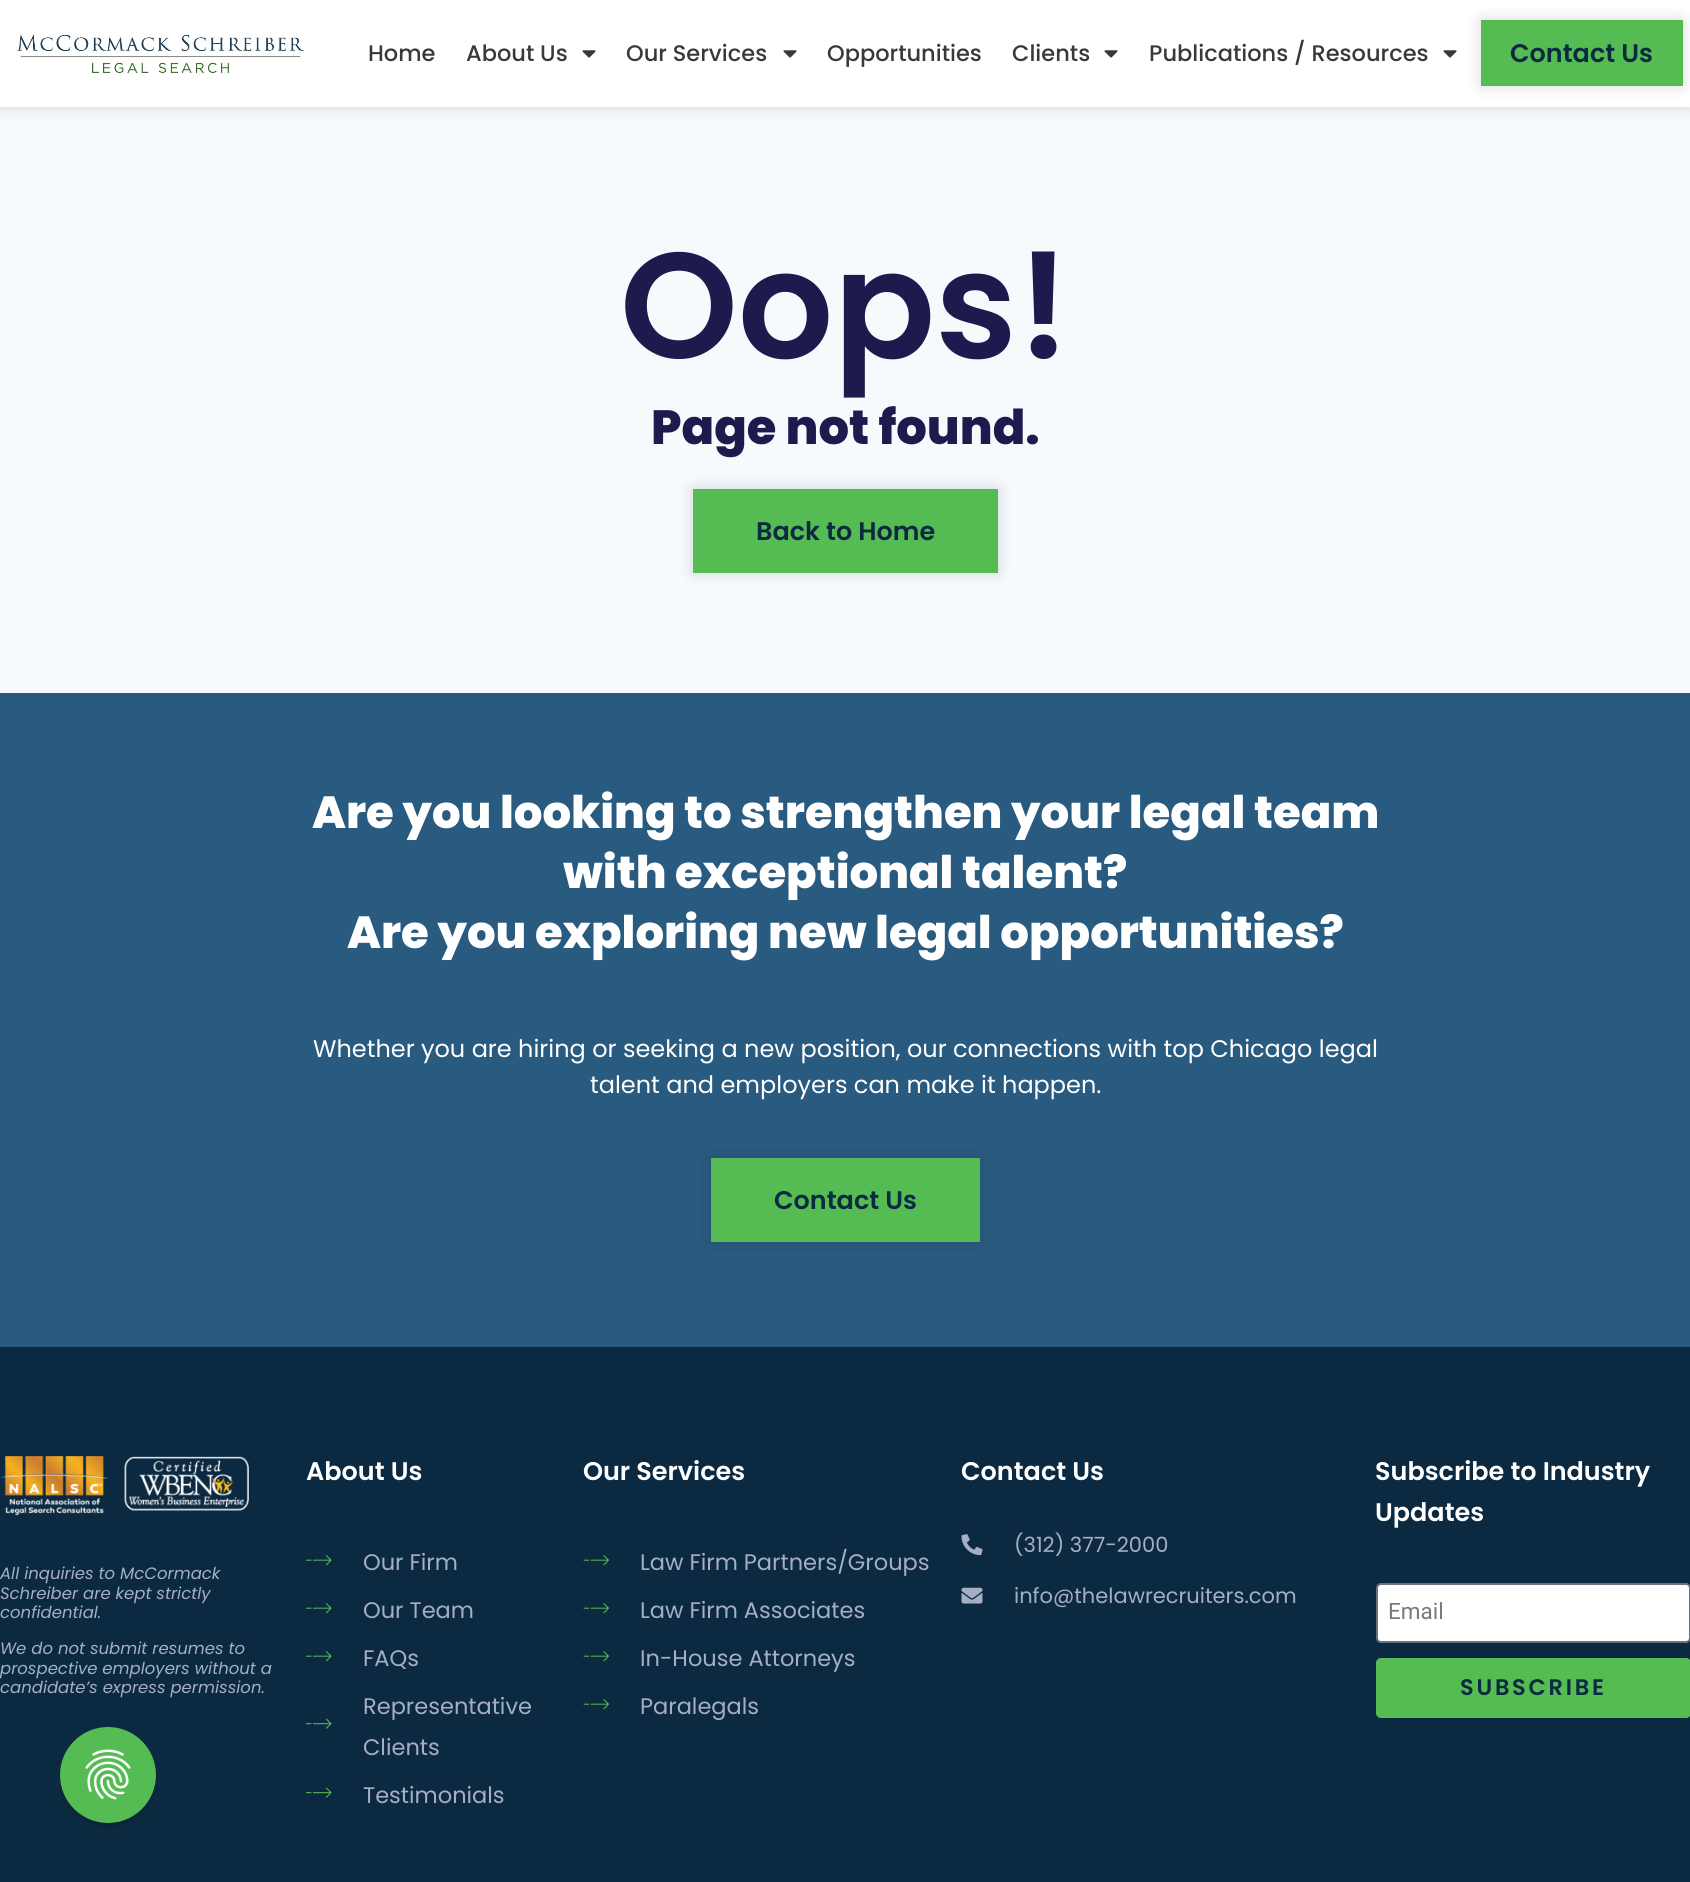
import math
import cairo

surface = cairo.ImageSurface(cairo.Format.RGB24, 1690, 1882)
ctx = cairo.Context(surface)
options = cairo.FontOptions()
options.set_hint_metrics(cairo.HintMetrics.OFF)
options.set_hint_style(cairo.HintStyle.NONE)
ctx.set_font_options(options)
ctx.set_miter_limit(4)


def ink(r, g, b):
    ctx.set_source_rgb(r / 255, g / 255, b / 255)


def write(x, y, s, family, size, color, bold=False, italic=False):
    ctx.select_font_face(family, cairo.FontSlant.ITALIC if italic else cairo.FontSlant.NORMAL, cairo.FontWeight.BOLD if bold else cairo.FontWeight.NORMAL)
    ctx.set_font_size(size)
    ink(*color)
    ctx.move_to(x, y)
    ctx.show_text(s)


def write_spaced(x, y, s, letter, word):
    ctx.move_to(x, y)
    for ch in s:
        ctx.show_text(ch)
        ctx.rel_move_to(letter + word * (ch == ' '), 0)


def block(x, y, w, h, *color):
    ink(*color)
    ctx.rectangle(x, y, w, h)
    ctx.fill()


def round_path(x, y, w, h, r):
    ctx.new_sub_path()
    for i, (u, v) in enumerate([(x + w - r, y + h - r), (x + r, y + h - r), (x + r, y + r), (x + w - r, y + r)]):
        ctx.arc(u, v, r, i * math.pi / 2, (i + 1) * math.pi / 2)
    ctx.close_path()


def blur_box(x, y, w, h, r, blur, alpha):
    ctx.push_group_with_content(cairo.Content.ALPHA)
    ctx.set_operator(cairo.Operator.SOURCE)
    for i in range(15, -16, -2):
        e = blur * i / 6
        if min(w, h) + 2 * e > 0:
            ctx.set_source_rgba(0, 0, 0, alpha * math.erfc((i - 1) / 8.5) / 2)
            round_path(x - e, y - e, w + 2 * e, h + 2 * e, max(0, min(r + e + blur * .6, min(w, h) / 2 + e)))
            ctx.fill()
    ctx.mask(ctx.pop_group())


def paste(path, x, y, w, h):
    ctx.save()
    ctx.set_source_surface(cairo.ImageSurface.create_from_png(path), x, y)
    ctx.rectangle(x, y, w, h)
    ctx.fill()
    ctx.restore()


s1 = dict(family="Poppins Medium", size=22.5, color=(57, 57, 57))
s2 = dict(family="Poppins SemiBold", size=25.5, color=(11, 42, 65))
s3 = dict(family="Poppins SemiBold", size=150, color=(29, 26, 78))
s4 = dict(family="Poppins ExtraBold", size=48, color=(29, 26, 78))
s5 = dict(family="Poppins ExtraBold", size=45, color=(255, 255, 255))
s6 = dict(family="Poppins", size=24, color=(255, 255, 255))
s7 = dict(family="Poppins SemiBold", size=25.5, color=(255, 255, 255))
s8 = dict(family="Poppins", size=22.5, color=(165, 174, 194))
s9 = dict(family="Poppins", size=21, color=(165, 174, 194))
s10 = dict(family="Roboto", size=22.5, color=(121, 122, 124))
s11 = dict(family="Poppins", size=16.5, color=(165, 174, 194), italic=True)

ink(247, 250, 252)
ctx.paint()
ink(0, 0, 0)
blur_box(0, 0, 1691, 107, 0, 7.5, 0.15)
block(0, 0, 1690, 107, 255, 255, 255)
paste("pic1.png", 17, 33, 287, 41)
write(368, 61, "Home", **s1)
write(466, 61, "About Us", **s1)
paste("pic2.png", 582, 50, 14, 8)
write(626, 61, "Our Services", **s1)
paste("pic2.png", 783, 50, 14, 8)
write(827, 61, "Opportunities", **s1)
write(1012, 61, "Clients", **s1)
paste("pic2.png", 1104, 50, 14, 8)
write(1149, 61, "Publications / Resources", **s1)
paste("pic2.png", 1443, 50, 14, 8)
ink(0, 0, 0)
blur_box(1481, 20, 202, 66, 0, 7.5, 0.15)
block(1481, 20, 202, 66, 85, 187, 83)
write(1510, 62, "Contact Us", **s2)
write(620, 358, "Oops!", **s3)
write(651, 444, "Page not found.", **s4)
ink(0, 0, 0)
blur_box(693, 489, 305, 84, 0, 7.5, 0.15)
block(693, 489, 305, 84, 85, 187, 83)
write(756, 540, "Back to Home", **s2)
block(0, 693, 1690, 654, 41, 91, 128)
write(312, 828, "Are you looking to strengthen your legal team", **s5)
write(563, 888, "with exceptional talent?", **s5)
write(347, 948, "Are you exploring new legal opportunities?", **s5)
write(313, 1057, "Whether you are hiring or seeking a new position, our connections with top Chicago legal", **s6)
write(590, 1093, "talent and employers can make it happen.", **s6)
ink(0, 0, 0)
blur_box(711, 1158, 269, 84, 0, 7.5, 0.15)
block(711, 1158, 269, 84, 85, 187, 83)
write(774, 1209, "Contact Us", **s2)
block(0, 1347, 1690, 535, 11, 42, 65)
write(306, 1480, "About Us", **s7)
paste("pic3.png", 306, 1555, 26, 11)
write(363, 1570, "Our Firm", **s8)
paste("pic3.png", 306, 1603, 26, 11)
write(363, 1618, "Our Team", **s8)
paste("pic3.png", 306, 1651, 26, 11)
write(363, 1666, "FAQs", **s8)
paste("pic4.png", 306, 1718, 26, 11)
write(363, 1714, "Representative", **s8)
write(363, 1755, "Clients", **s8)
paste("pic4.png", 306, 1787, 26, 11)
write(363, 1803, "Testimonials", **s8)
write(583, 1480, "Our Services", **s7)
paste("pic5.png", 583, 1555, 26, 11)
write(640, 1570, "Law Firm Partners/Groups", **s8)
paste("pic5.png", 583, 1603, 26, 11)
write(640, 1618, "Law Firm Associates", **s8)
paste("pic5.png", 583, 1651, 26, 11)
write(640, 1666, "In-House Attorneys", **s8)
paste("pic5.png", 583, 1699, 26, 11)
write(640, 1714, "Paralegals", **s8)
write(961, 1480, "Contact Us", **s7)
paste("pic6.png", 961, 1534, 22, 22)
write(1014, 1552, "(312) 377-2000", **s9)
paste("pic7.png", 961, 1587, 22, 17)
write(1014, 1603, "info@thelawrecruiters.com", **s9)
write(1375, 1480, "Subscribe to Industry", **s7)
write(1375, 1521, "Updates", **s7)
round_path(1377, 1584, 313, 58, 4)
ctx.fill_preserve()
ink(105, 114, 125)
ctx.stroke()
write(1388, 1619, "Email", **s10)
ink(85, 187, 83)
round_path(1376, 1658, 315, 60, 5)
ctx.fill()
ctx.select_font_face("Poppins SemiBold")
ink(11, 42, 65)
write_spaced(1460, 1695, "SUBSCRIBE", 2.75, 0)
paste("pic8.png", 0, 1455, 249, 61)
write(0, 1579, "All inquiries to McCormack", **s11)
write(0, 1599, "Schreiber are kept strictly", **s11)
write(0, 1618, "confidential.", **s11)
write(0, 1654, "We do not submit resumes to", **s11)
write(0, 1674, "prospective employers without a", **s11)
write(0, 1693, "candidate’s express permission.", **s11)
ink(0, 0, 0)
blur_box(62, 1733, 93, 93, 46.5, 4, 0.2)
ink(85, 187, 83)
ctx.arc(108, 1775, 48, 0, 2 * math.pi)
ctx.fill()
paste("pic9.png", 85, 1749, 46, 51)
surface.write_to_png("screenshot.png")
